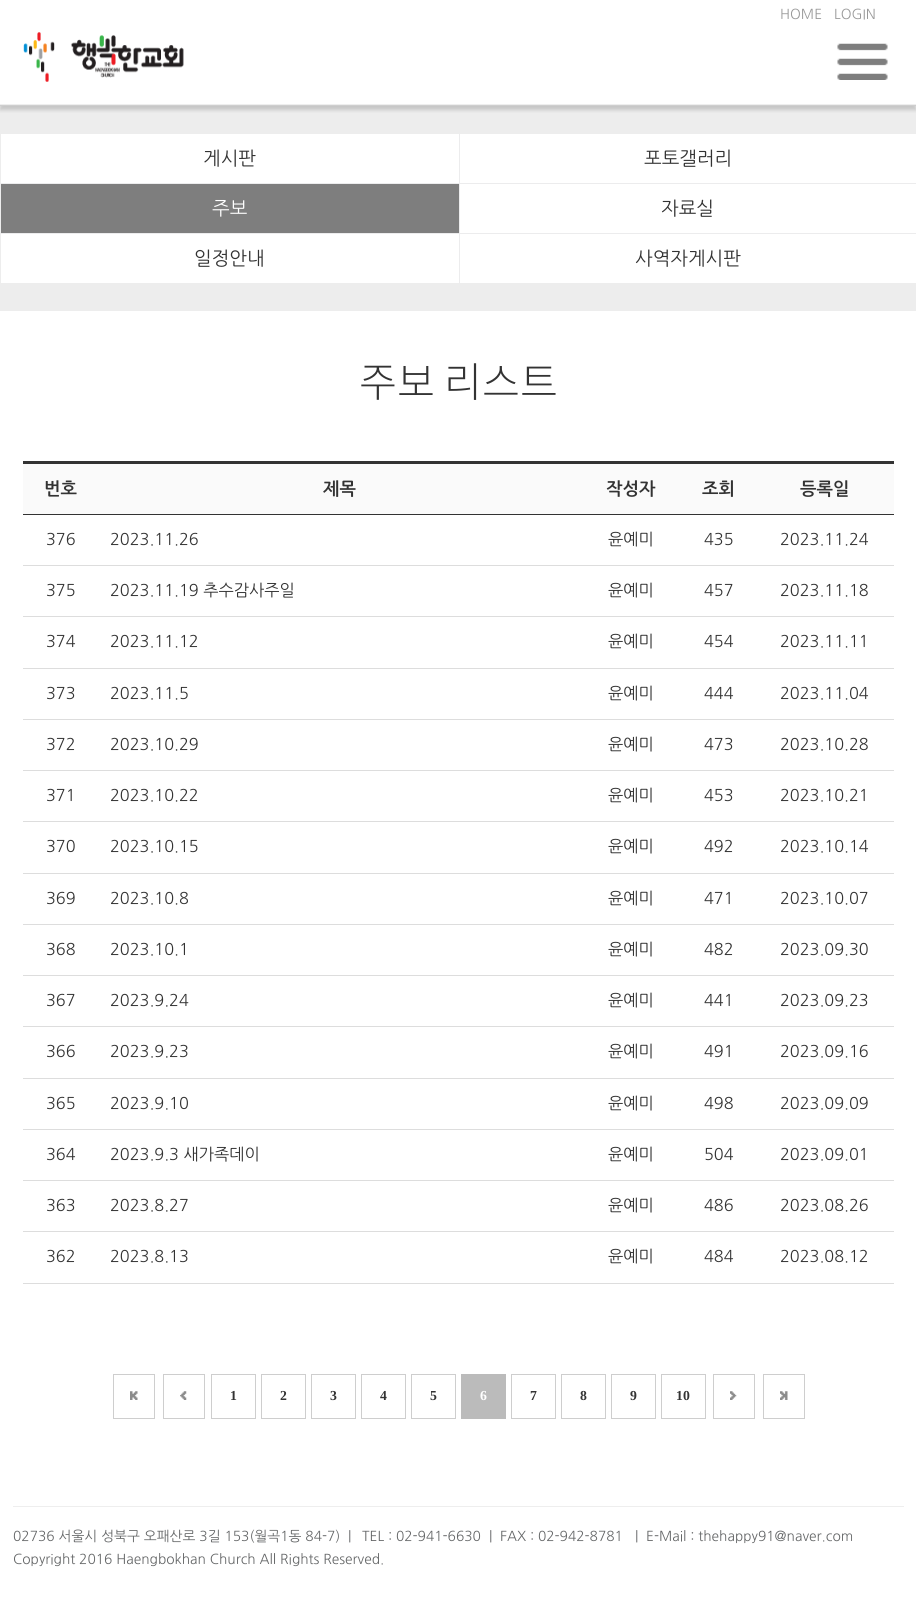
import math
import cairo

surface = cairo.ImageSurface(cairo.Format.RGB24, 916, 1613)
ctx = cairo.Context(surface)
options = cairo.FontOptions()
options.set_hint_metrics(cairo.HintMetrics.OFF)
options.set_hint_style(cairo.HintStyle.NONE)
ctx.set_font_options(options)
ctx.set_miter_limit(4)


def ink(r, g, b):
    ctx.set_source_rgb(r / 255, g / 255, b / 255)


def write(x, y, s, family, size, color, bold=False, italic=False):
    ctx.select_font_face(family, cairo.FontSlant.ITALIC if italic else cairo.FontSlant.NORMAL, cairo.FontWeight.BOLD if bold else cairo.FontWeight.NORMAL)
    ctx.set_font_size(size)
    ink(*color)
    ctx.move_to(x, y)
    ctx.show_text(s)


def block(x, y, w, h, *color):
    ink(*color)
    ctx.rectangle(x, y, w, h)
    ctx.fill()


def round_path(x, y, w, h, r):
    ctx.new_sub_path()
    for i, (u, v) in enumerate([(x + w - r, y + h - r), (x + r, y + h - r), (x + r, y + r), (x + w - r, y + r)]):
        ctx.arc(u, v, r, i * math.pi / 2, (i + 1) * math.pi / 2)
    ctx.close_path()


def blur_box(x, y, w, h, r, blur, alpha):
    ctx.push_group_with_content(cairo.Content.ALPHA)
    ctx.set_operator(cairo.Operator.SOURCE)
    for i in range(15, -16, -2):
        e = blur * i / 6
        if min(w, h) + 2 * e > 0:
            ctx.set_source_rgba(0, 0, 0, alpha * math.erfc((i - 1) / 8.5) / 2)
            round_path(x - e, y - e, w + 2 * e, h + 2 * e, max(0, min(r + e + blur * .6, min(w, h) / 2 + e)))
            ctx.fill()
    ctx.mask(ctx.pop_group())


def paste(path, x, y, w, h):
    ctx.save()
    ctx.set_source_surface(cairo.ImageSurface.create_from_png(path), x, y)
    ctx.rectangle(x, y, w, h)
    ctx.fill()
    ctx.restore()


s1 = dict(family="NanumGothic", size=13.75, color=(153, 153, 153))
s2 = dict(family="NanumGothic", size=18.75, color=(51, 51, 51))
s3 = dict(family="NanumGothic", size=18.75, color=(255, 255, 255))
s4 = dict(family="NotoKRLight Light", size=41.25, color=(51, 51, 51))
s5 = dict(family="NanumGothic", size=17.5, color=(51, 51, 51), bold=True)
s6 = dict(family="NanumGothic", size=16.25, color=(51, 51, 51))
s7 = dict(family="Liberation Serif", size=13.75, color=(51, 51, 51), bold=True)
s8 = dict(family="Liberation Serif", size=13.75, color=(255, 255, 255), bold=True)
s9 = dict(family="NanumGothic", size=13.75, color=(101, 103, 104))

ink(255, 255, 255)
ctx.paint()
block(0, 106, 916, 205, 237, 237, 237)
ctx.save()
ctx.rectangle(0, 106, 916, 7)
ctx.clip()
ink(158, 158, 158)
blur_box(0, 4, 916, 106, 0, 2, 0.5)
ctx.restore()
block(0, 105, 916, 1, 206, 206, 206)
block(0, 104, 916, 1, 238, 238, 238)
write(780, 19, "HOME", **s1)
write(834, 19, "LOGIN", **s1)
paste("pic1.png", 23, 32, 161, 50)
paste("pic2.png", 837, 43, 51, 37)
block(1, 134, 915, 149, 255, 255, 255)
block(0, 183, 916, 1, 236, 236, 237)
write(203, 165, "게시판", **s2)
block(459, 134, 1, 50, 236, 236, 237)
write(644, 165, "포토갤러리", **s2)
block(1, 184, 458, 49, 126, 126, 126)
block(0, 233, 916, 1, 236, 236, 237)
write(212, 215, "주보", **s3)
block(459, 184, 1, 100, 236, 236, 237)
write(661, 215, "자료실", **s2)
write(194, 265, "일정안내", **s2)
write(635, 265, "사역자게시판", **s2)
write(359, 397, "주보 리스트", **s4)
block(23, 461, 871, 3, 51, 51, 51)
block(23, 464, 871, 50, 250, 250, 250)
write(44, 495, "번호", **s5)
write(323, 495, "제목", **s5)
write(606, 495, "작성자", **s5)
write(702, 495, "조회", **s5)
block(23, 514, 871, 1, 51, 51, 51)
write(800, 495, "등록일", **s5)
write(46, 545, "376", **s6)
write(110, 545, "2023.11.26", **s6)
write(608, 545, "윤예미", **s6)
write(704, 545, "435", **s6)
block(23, 565, 871, 1, 221, 221, 221)
write(780, 545, "2023.11.24", **s6)
write(46, 596, "375", **s6)
write(110, 596, "2023.11.19 추수감사주일", **s6)
write(608, 596, "윤예미", **s6)
write(704, 596, "457", **s6)
block(23, 616, 871, 1, 221, 221, 221)
write(780, 596, "2023.11.18", **s6)
write(46, 647, "374", **s6)
write(110, 647, "2023.11.12", **s6)
write(608, 647, "윤예미", **s6)
write(704, 647, "454", **s6)
block(23, 668, 871, 1, 221, 221, 221)
write(780, 647, "2023.11.11", **s6)
write(46, 699, "373", **s6)
write(110, 699, "2023.11.5", **s6)
write(608, 699, "윤예미", **s6)
write(704, 699, "444", **s6)
block(23, 719, 871, 1, 221, 221, 221)
write(780, 699, "2023.11.04", **s6)
write(46, 750, "372", **s6)
write(110, 750, "2023.10.29", **s6)
write(608, 750, "윤예미", **s6)
write(704, 750, "473", **s6)
block(23, 770, 871, 1, 221, 221, 221)
write(780, 750, "2023.10.28", **s6)
write(46, 801, "371", **s6)
write(110, 801, "2023.10.22", **s6)
write(608, 801, "윤예미", **s6)
write(704, 801, "453", **s6)
block(23, 821, 871, 1, 221, 221, 221)
write(780, 801, "2023.10.21", **s6)
write(46, 852, "370", **s6)
write(110, 852, "2023.10.15", **s6)
write(608, 852, "윤예미", **s6)
write(704, 852, "492", **s6)
block(23, 873, 871, 1, 221, 221, 221)
write(780, 852, "2023.10.14", **s6)
write(46, 904, "369", **s6)
write(110, 904, "2023.10.8", **s6)
write(608, 904, "윤예미", **s6)
write(704, 904, "471", **s6)
block(23, 924, 871, 1, 221, 221, 221)
write(780, 904, "2023.10.07", **s6)
write(46, 955, "368", **s6)
write(110, 955, "2023.10.1", **s6)
write(608, 955, "윤예미", **s6)
write(704, 955, "482", **s6)
block(23, 975, 871, 1, 221, 221, 221)
write(780, 955, "2023.09.30", **s6)
write(46, 1006, "367", **s6)
write(110, 1006, "2023.9.24", **s6)
write(608, 1006, "윤예미", **s6)
write(704, 1006, "441", **s6)
block(23, 1026, 871, 1, 221, 221, 221)
write(780, 1006, "2023.09.23", **s6)
write(46, 1057, "366", **s6)
write(110, 1057, "2023.9.23", **s6)
write(608, 1057, "윤예미", **s6)
write(704, 1057, "491", **s6)
block(23, 1078, 871, 1, 221, 221, 221)
write(780, 1057, "2023.09.16", **s6)
write(46, 1109, "365", **s6)
write(110, 1109, "2023.9.10", **s6)
write(608, 1109, "윤예미", **s6)
write(704, 1109, "498", **s6)
block(23, 1129, 871, 1, 221, 221, 221)
write(780, 1109, "2023.09.09", **s6)
write(46, 1160, "364", **s6)
write(110, 1160, "2023.9.3 새가족데이", **s6)
write(608, 1160, "윤예미", **s6)
write(704, 1160, "504", **s6)
block(23, 1180, 871, 1, 221, 221, 221)
write(780, 1160, "2023.09.01", **s6)
write(46, 1211, "363", **s6)
write(110, 1211, "2023.8.27", **s6)
write(608, 1211, "윤예미", **s6)
write(704, 1211, "486", **s6)
block(23, 1231, 871, 1, 221, 221, 221)
write(780, 1211, "2023.08.26", **s6)
write(46, 1262, "362", **s6)
write(110, 1262, "2023.8.13", **s6)
write(608, 1262, "윤예미", **s6)
write(704, 1262, "484", **s6)
block(23, 1283, 871, 1, 221, 221, 221)
write(780, 1262, "2023.08.12", **s6)
paste("pic3.png", 130, 1391, 8, 9)
ctx.rectangle(113.5, 1374.5, 41, 44)
ink(206, 206, 206)
ctx.set_line_width(1)
ctx.stroke()
paste("pic4.png", 180, 1391, 7, 9)
ctx.rectangle(163.5, 1374.5, 41, 44)
ctx.stroke()
ctx.rectangle(211.5, 1374.5, 44, 44)
ctx.stroke()
write(230, 1400, "1", **s7)
ctx.rectangle(261.5, 1374.5, 44, 44)
ink(206, 206, 206)
ctx.stroke()
write(280, 1400, "2", **s7)
ctx.rectangle(311.5, 1374.5, 44, 44)
ink(206, 206, 206)
ctx.stroke()
write(330, 1400, "3", **s7)
ctx.rectangle(361.5, 1374.5, 44, 44)
ink(206, 206, 206)
ctx.stroke()
write(380, 1400, "4", **s7)
ctx.rectangle(411.5, 1374.5, 44, 44)
ink(206, 206, 206)
ctx.stroke()
write(430, 1400, "5", **s7)
block(461, 1374, 45, 45, 187, 187, 187)
write(480, 1400, "6", **s8)
ctx.rectangle(511.5, 1374.5, 44, 44)
ink(206, 206, 206)
ctx.stroke()
write(530, 1400, "7", **s7)
ctx.rectangle(561.5, 1374.5, 44, 44)
ink(206, 206, 206)
ctx.stroke()
write(580, 1400, "8", **s7)
ctx.rectangle(611.5, 1374.5, 44, 44)
ink(206, 206, 206)
ctx.stroke()
write(630, 1400, "9", **s7)
ctx.rectangle(661.5, 1374.5, 44, 44)
ink(206, 206, 206)
ctx.stroke()
write(676, 1400, "10", **s7)
paste("pic5.png", 730, 1391, 7, 9)
ctx.rectangle(713.5, 1374.5, 41, 44)
ink(206, 206, 206)
ctx.stroke()
paste("pic6.png", 780, 1391, 8, 9)
ctx.rectangle(763.5, 1374.5, 41, 44)
ctx.stroke()
block(13, 1506, 891, 1, 238, 238, 238)
write(13, 1541, "02736 서울시 성북구 오패산로 3길 153(월곡1동 84-7)", **s9)
write(348, 1541, "|", **s9)
write(362, 1541, "TEL : 02-941-6630", **s9)
write(489, 1541, "|", **s9)
write(500, 1541, "FAX : 02-942-8781", **s9)
write(635, 1541, "|", **s9)
write(646, 1541, "E-Mail : thehappy91@naver.com", **s9)
write(13, 1564, "Copyright 2016 Haengbokhan Church All Rights Reserved.", **s9)
surface.write_to_png("screenshot.png")
